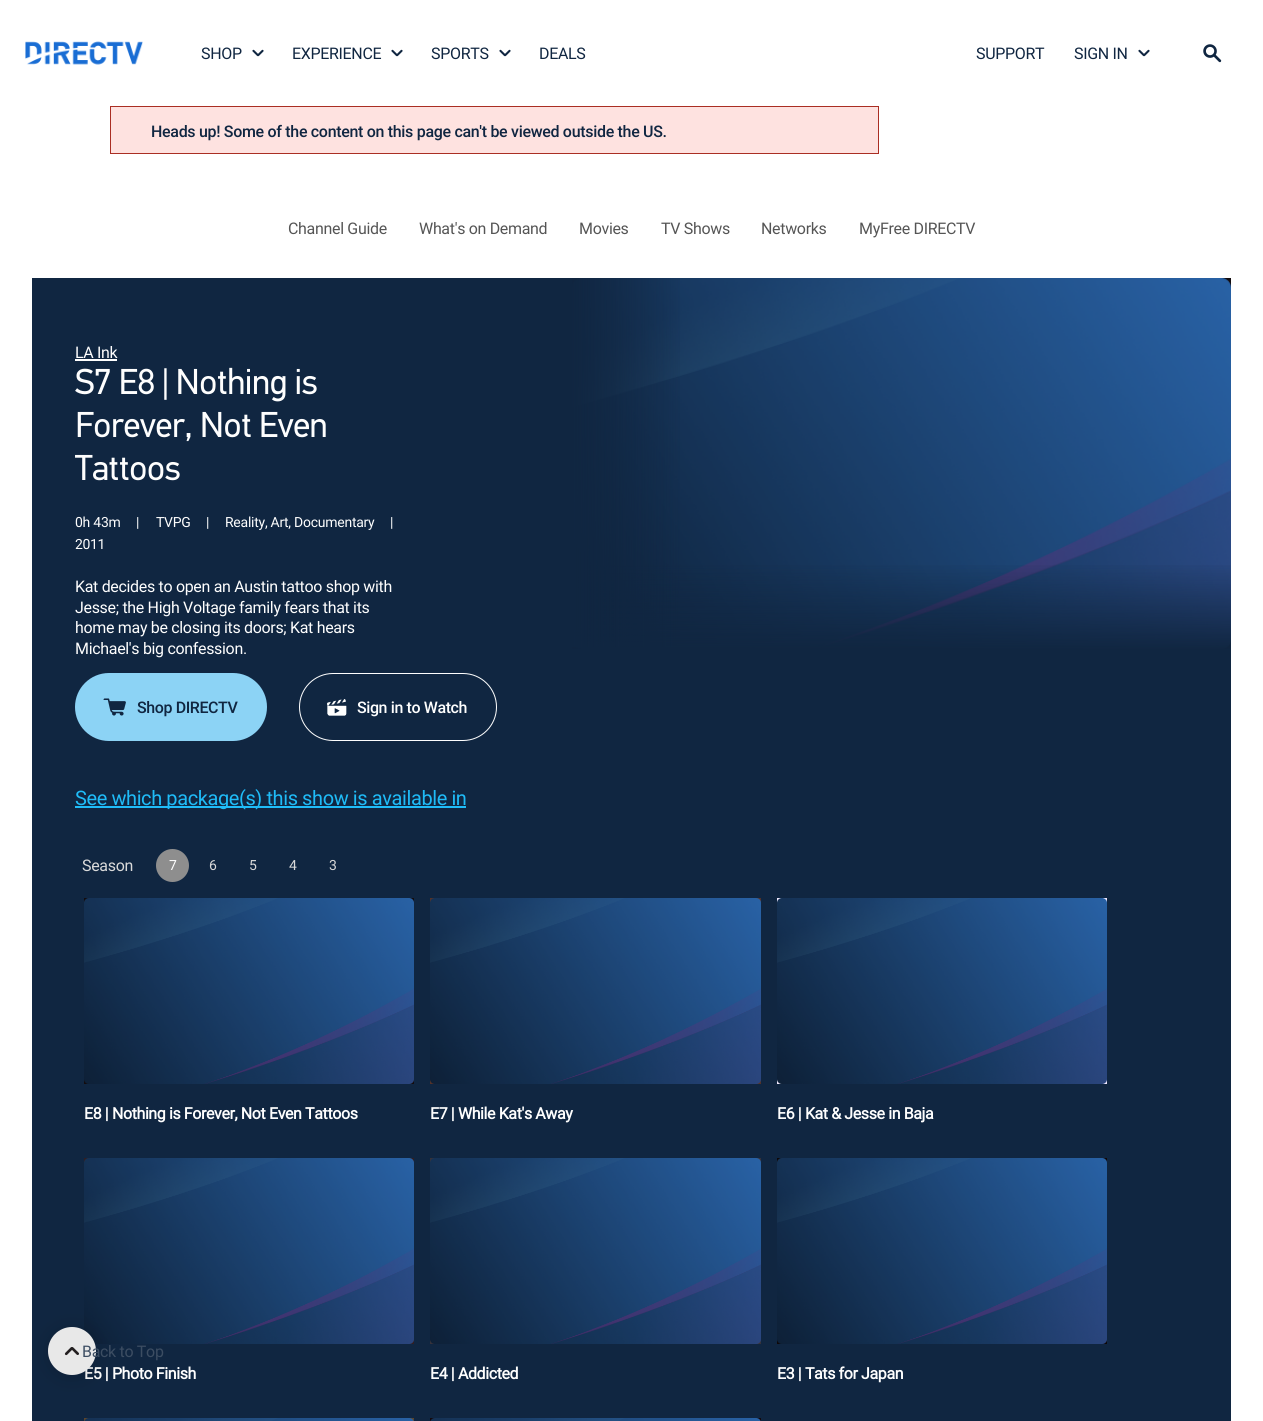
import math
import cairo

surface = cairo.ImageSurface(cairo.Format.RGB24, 1263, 1421)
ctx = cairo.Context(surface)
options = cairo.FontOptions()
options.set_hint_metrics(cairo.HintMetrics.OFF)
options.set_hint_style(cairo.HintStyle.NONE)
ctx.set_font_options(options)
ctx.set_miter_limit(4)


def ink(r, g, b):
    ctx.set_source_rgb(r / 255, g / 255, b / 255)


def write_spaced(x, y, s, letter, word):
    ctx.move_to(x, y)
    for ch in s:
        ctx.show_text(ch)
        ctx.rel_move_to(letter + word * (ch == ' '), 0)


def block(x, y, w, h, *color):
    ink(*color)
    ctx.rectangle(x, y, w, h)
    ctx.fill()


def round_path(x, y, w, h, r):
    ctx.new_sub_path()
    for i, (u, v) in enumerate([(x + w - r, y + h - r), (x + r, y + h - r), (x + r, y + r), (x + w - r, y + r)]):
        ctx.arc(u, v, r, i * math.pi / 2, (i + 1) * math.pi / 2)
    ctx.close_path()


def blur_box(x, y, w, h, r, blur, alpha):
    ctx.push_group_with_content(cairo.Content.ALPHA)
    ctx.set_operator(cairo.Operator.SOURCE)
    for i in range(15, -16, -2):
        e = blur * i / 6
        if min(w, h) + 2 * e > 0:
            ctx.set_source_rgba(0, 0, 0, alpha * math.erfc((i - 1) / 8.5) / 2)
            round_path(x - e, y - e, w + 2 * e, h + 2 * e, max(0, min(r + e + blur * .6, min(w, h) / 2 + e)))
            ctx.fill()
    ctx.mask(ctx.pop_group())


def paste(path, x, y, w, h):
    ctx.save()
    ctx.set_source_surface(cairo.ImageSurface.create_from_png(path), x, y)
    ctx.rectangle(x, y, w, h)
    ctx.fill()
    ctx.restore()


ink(255, 255, 255)
ctx.paint()
paste("pic1.png", 25, 41, 118, 24)
ctx.select_font_face("Roboto")
ctx.set_font_size(16)
ink(16, 38, 65)
write_spaced(201, 59, "SHOP", -0.32, 0)
paste("pic2.png", 252, 49, 12, 8)
write_spaced(292, 59, "EXPERIENCE", -0.32, 0)
paste("pic2.png", 391, 49, 12, 8)
write_spaced(431, 59, "SPORTS", -0.32, 0)
paste("pic2.png", 499, 49, 12, 8)
write_spaced(539, 59, "DEALS", -0.32, 0)
write_spaced(976, 59, "SUPPORT", -0.32, 0)
write_spaced(1074, 59, "SIGN IN", -0.32, 0)
paste("pic2.png", 1138, 49, 12, 8)
paste("pic3.png", 1203, 44, 19, 19)
ink(254, 226, 224)
ctx.rectangle(110.5, 106.5, 768, 47)
ctx.fill_preserve()
ink(170, 46, 35)
ctx.set_line_width(1)
ctx.stroke()
ctx.select_font_face("Roboto Medium")
ink(16, 38, 65)
write_spaced(151, 137, "Heads up! Some of the content on this page can't be viewed outside the US.", -0.32, 0)
ctx.select_font_face("Roboto")
ink(85, 85, 85)
write_spaced(288, 234, "Channel Guide", -0.32, 0)
write_spaced(419, 234, "What's on Demand", -0.32, 0)
write_spaced(579, 234, "Movies", -0.32, 0)
write_spaced(661, 234, "TV Shows", -0.32, 0)
write_spaced(761, 234, "Networks", -0.32, 0)
write_spaced(859, 234, "MyFree DIRECTV", -0.32, 0)
block(32, 278, 1199, 1143, 16, 38, 65)
ink(254, 254, 254)
write_spaced(75, 358, "LA Ink", -0.32, 0)
block(75, 359, 42, 2, 255, 255, 255)
ctx.select_font_face("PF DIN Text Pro")
ctx.set_font_size(36)
ink(254, 254, 254)
write_spaced(75, 394, "S7 E8 | Nothing is", -0.75, 0)
write_spaced(75, 437, "Forever, Not Even", -0.75, 0)
write_spaced(75, 480, "Tattoos", -0.75, 0)
ctx.select_font_face("Roboto")
ctx.set_font_size(14)
write_spaced(75, 527, "0h 43m", -0.25, 0)
write_spaced(136, 527, "|", -0.25, 0)
write_spaced(156, 527, "TVPG", -0.25, 0)
write_spaced(206, 527, "|", -0.25, 0)
write_spaced(225, 527, "Reality, Art, Documentary", -0.25, 0)
write_spaced(390, 527, "|", -0.25, 0)
write_spaced(75, 549, "2011", -0.4, 0)
ctx.set_font_size(16)
write_spaced(75, 592, "Kat decides to open an Austin tattoo shop with", -0.32, 0)
write_spaced(75, 613, "Jesse; the High Voltage family fears that its", -0.32, 0)
write_spaced(75, 633, "home may be closing its doors; Kat hears", -0.32, 0)
write_spaced(75, 654, "Michael's big confession.", -0.32, 0)
ink(140, 211, 245)
round_path(75, 673, 192, 68, 34)
ctx.fill()
paste("pic4.png", 103, 698, 23, 18)
ctx.select_font_face("Roboto Medium")
ink(16, 38, 65)
write_spaced(137, 713, "Shop DIRECTV", -0.4, 0)
round_path(299.5, 673.5, 197, 67, 33.5)
ink(254, 254, 254)
ctx.stroke()
paste("pic5.png", 327, 699, 20, 17)
write_spaced(357, 713, "Sign in to Watch", -0.4, 0)
block(75, 806, 391, 2, 31, 188, 248)
ctx.select_font_face("Roboto")
ctx.set_font_size(20)
write_spaced(75, 805, "See which package(s) this show is available in", -0.4, 0)
block(572, 278, 659, 371, 19, 12, 14)
paste("pic6.png", 572, 278, 659, 371)
gradient = cairo.LinearGradient(901, 650, 901, 278)
gradient.add_color_stop_rgba(0, 0.063, 0.149, 0.255, 1)
gradient.add_color_stop_rgba(0.24, 0.063, 0.149, 0.255, 0)
ctx.set_source(gradient)
ctx.rectangle(572, 565, 659, 84)
ctx.fill()
gradient = cairo.LinearGradient(570, 464, 1231, 464)
gradient.add_color_stop_rgba(0, 0.063, 0.149, 0.255, 1)
gradient.add_color_stop_rgba(0.18, 0.063, 0.149, 0.255, 0)
ctx.set_source(gradient)
ctx.rectangle(572, 278, 108, 369)
ctx.fill()
ctx.set_font_size(16)
ink(218, 218, 218)
write_spaced(82, 871, "Season", -0.32, 0)
ink(142, 142, 142)
ctx.new_path()
ctx.arc(172.5, 865.5, 16.5, 0, 2 * math.pi)
ctx.fill()
ctx.set_font_size(14)
ink(254, 254, 254)
write_spaced(169, 870, "7", -0.25, 0)
ink(218, 218, 218)
write_spaced(209, 870, "6", -0.25, 0)
write_spaced(249, 870, "5", -0.25, 0)
write_spaced(289, 870, "4", -0.25, 0)
write_spaced(329, 870, "3", -0.25, 0)
block(84, 898, 330, 186, 19, 12, 14)
paste("pic7.png", 84, 898, 330, 186)
ctx.select_font_face("Roboto", cairo.FontSlant.NORMAL, cairo.FontWeight.BOLD)
ctx.set_font_size(16)
ink(254, 254, 254)
write_spaced(84, 1119, "E8 | Nothing is Forever, Not Even Tattoos", -0.4, 0)
block(430, 898, 331, 186, 83, 50, 41)
paste("pic8.png", 430, 898, 331, 186)
ink(254, 254, 254)
write_spaced(430, 1119, "E7 | While Kat's Away", -0.4, 0)
block(777, 898, 330, 186, 239, 231, 252)
paste("pic9.png", 777, 898, 330, 186)
ink(254, 254, 254)
write_spaced(777, 1119, "E6 | Kat & Jesse in Baja", -0.4, 0)
block(84, 1158, 330, 186, 48, 30, 34)
paste("pic10.png", 84, 1158, 330, 186)
ink(254, 254, 254)
write_spaced(84, 1379, "E5 | Photo Finish", -0.4, 0)
block(430, 1158, 331, 186, 54, 50, 58)
paste("pic11.png", 430, 1158, 331, 186)
ink(254, 254, 254)
write_spaced(430, 1379, "E4 | Addicted", -0.4, 0)
block(777, 1158, 330, 186, 15, 8, 8)
paste("pic12.png", 777, 1158, 330, 186)
ink(254, 254, 254)
write_spaced(777, 1379, "E3 | Tats for Japan", -0.4, 0)
block(84, 1418, 330, 3, 92, 69, 43)
paste("pic13.png", 84, 1418, 330, 3)
block(430, 1418, 331, 3, 20, 8, 12)
paste("pic14.png", 430, 1418, 331, 3)
ink(0, 0, 0)
blur_box(48, 1329, 48, 48, 24, 10, 0.15)
ink(232, 232, 232)
ctx.arc(72, 1351, 24, 0, 2 * math.pi)
ctx.fill()
paste("pic15.png", 64, 1347, 15, 9)
ctx.select_font_face("Roboto")
ink(60, 77, 98)
write_spaced(82, 1357, "Back to Top", -0.32, 0)
surface.write_to_png("screenshot.png")
